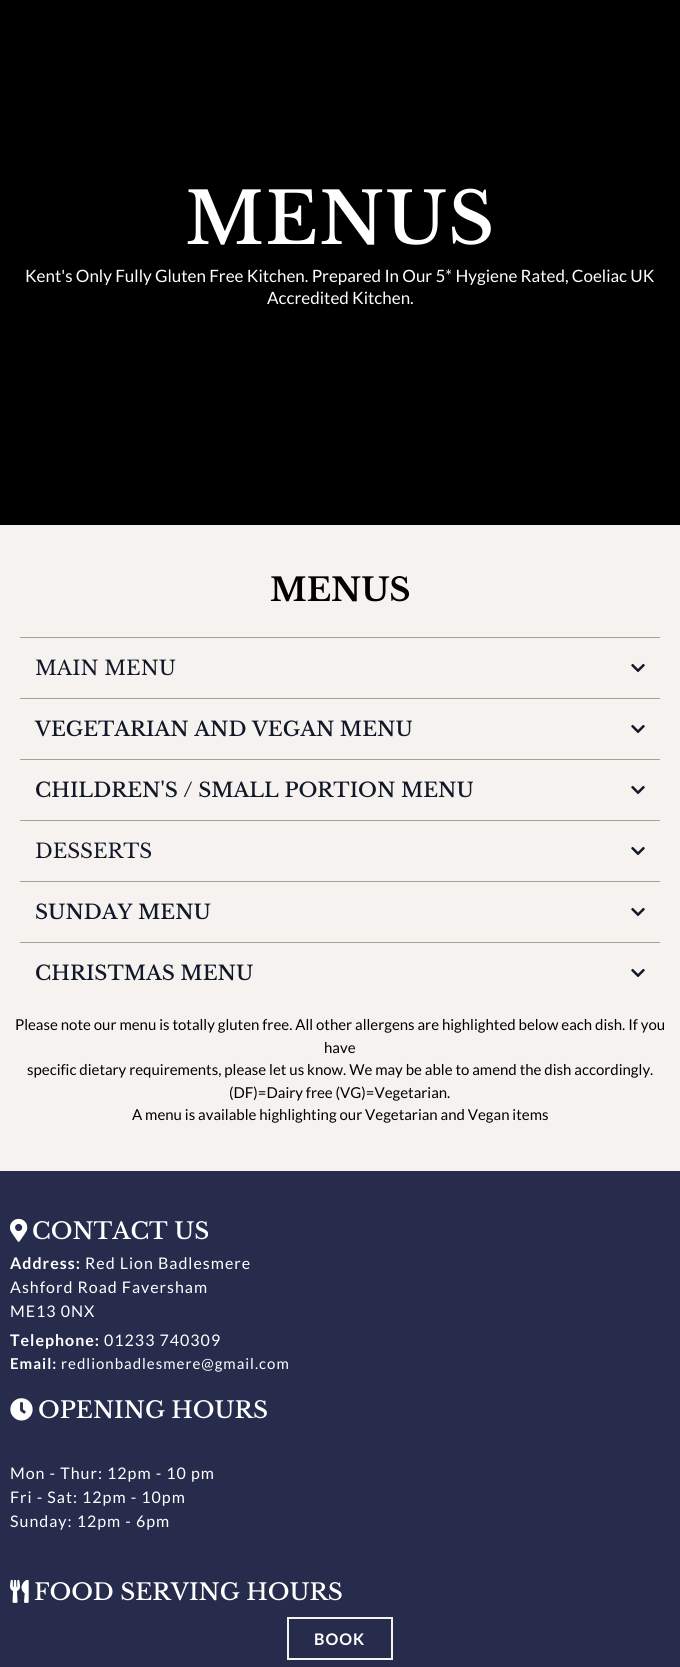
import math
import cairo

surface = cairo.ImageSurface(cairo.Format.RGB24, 680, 1667)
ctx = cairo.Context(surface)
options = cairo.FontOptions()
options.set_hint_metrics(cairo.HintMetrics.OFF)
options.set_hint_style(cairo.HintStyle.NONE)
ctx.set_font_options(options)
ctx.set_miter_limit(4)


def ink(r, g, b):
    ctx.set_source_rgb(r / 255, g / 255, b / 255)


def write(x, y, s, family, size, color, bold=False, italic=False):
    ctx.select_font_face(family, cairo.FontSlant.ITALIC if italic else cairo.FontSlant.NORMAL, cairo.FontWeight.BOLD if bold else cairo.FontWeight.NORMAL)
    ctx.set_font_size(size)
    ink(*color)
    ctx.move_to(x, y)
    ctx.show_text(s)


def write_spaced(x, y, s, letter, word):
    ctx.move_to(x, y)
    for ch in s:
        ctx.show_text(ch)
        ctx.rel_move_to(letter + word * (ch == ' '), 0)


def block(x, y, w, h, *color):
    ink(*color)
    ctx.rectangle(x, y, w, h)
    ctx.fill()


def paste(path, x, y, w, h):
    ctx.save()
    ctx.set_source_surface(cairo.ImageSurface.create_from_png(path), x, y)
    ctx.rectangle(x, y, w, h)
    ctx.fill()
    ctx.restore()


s1 = dict(family="Lato", size=17, color=(255, 255, 255))
s2 = dict(family="Libre Baskerville", size=32, color=(0, 0, 0), bold=True)
s3 = dict(family="Libre Baskerville", size=20, color=(17, 24, 39))
s4 = dict(family="Libre Baskerville Medium", size=20, color=(17, 24, 39))
s5 = dict(family="Lato", size=15, color=(0, 0, 0))
s6 = dict(family="Libre Baskerville Medium", size=23, color=(255, 255, 255))

ink(246, 242, 239)
ctx.paint()
block(0, 0, 680, 525, 0, 0, 0)
ctx.select_font_face("Libre Baskerville Medium")
ctx.set_font_size(71)
ink(255, 255, 255)
write_spaced(185, 244, "MENUS", 1, 0)
write(25, 282, "Kent's Only Fully Gluten Free Kitchen. Prepared In Our 5* Hygiene Rated, Coeliac UK", **s1)
write(267, 304, "Accredited Kitchen.", **s1)
write(270, 601, "MENUS", **s2)
block(20, 637, 640, 1, 155, 166, 144)
write(35, 675, "MAIN MENU", **s3)
paste("pic1.png", 631, 663, 14, 10)
block(20, 698, 640, 1, 155, 166, 144)
write(35, 736, "VEGETARIAN AND VEGAN MENU", **s4)
paste("pic1.png", 631, 724, 14, 10)
block(20, 759, 640, 1, 155, 166, 144)
write(35, 797, "CHILDREN'S / SMALL PORTION MENU", **s4)
paste("pic1.png", 631, 785, 14, 10)
block(20, 820, 640, 1, 155, 166, 144)
write(35, 858, "DESSERTS", **s3)
paste("pic1.png", 631, 846, 14, 10)
block(20, 881, 640, 1, 155, 166, 144)
write(35, 919, "SUNDAY MENU", **s4)
paste("pic1.png", 631, 907, 14, 10)
block(20, 942, 640, 1, 155, 166, 144)
write(35, 980, "CHRISTMAS MENU", **s4)
paste("pic1.png", 631, 968, 14, 10)
write(15, 1030, "Please note our menu is totally gluten free. All other allergens are highlighted below each dish. If you", **s5)
write(324, 1053, "have", **s5)
write(27, 1075, "specific dietary requirements, please let us know. We may be able to amend the dish accordingly.", **s5)
write(229, 1098, "(DF)=Dairy free (VG)=Vegetarian.", **s5)
write(132, 1120, "A menu is available highlighting our Vegetarian and Vegan items", **s5)
block(0, 1171, 680, 496, 39, 44, 77)
paste("pic2.png", 10, 1218, 18, 24)
write(32, 1239, "CONTACT US", **s6)
ctx.select_font_face("Lato", cairo.FontSlant.NORMAL, cairo.FontWeight.BOLD)
ctx.set_font_size(16)
write_spaced(10, 1269, "Address:", 1, 0)
ctx.select_font_face("Lato")
write_spaced(85, 1269, "Red Lion Badlesmere", 1, 0)
write_spaced(10, 1293, "Ashford Road Faversham", 1, 0)
write_spaced(10, 1317, "ME13 0NX", 1, 0)
ctx.select_font_face("Lato", cairo.FontSlant.NORMAL, cairo.FontWeight.BOLD)
write_spaced(10, 1346, "Telephone:", 1, 0)
ctx.select_font_face("Lato")
write_spaced(104, 1346, "01233 740309", 1, 0)
ctx.select_font_face("Lato", cairo.FontSlant.NORMAL, cairo.FontWeight.BOLD)
ctx.set_font_size(15)
write_spaced(10, 1369, "Email:", 1, 0)
ctx.select_font_face("Lato")
write_spaced(61, 1369, "redlionbadlesmere@gmail.com", 1, 0)
paste("pic3.png", 10, 1398, 23, 23)
write(38, 1418, "OPENING HOURS", **s6)
ctx.select_font_face("Lato")
ctx.set_font_size(16)
write_spaced(10, 1479, "Mon - Thur: 12pm - 10 pm", 1, 0)
write_spaced(10, 1503, "Fri - Sat: 12pm - 10pm", 1, 0)
write_spaced(10, 1527, "Sunday: 12pm - 6pm", 1, 0)
paste("pic4.png", 10, 1579, 19, 24)
write(34, 1600, "FOOD SERVING HOURS", **s6)
ctx.rectangle(288, 1618, 104, 41)
ink(246, 242, 239)
ctx.stroke()
ctx.select_font_face("Lato", cairo.FontSlant.NORMAL, cairo.FontWeight.BOLD)
ctx.set_font_size(16)
ink(255, 255, 255)
write_spaced(314, 1645, "BOOK", 1, 0)
surface.write_to_png("screenshot.png")
